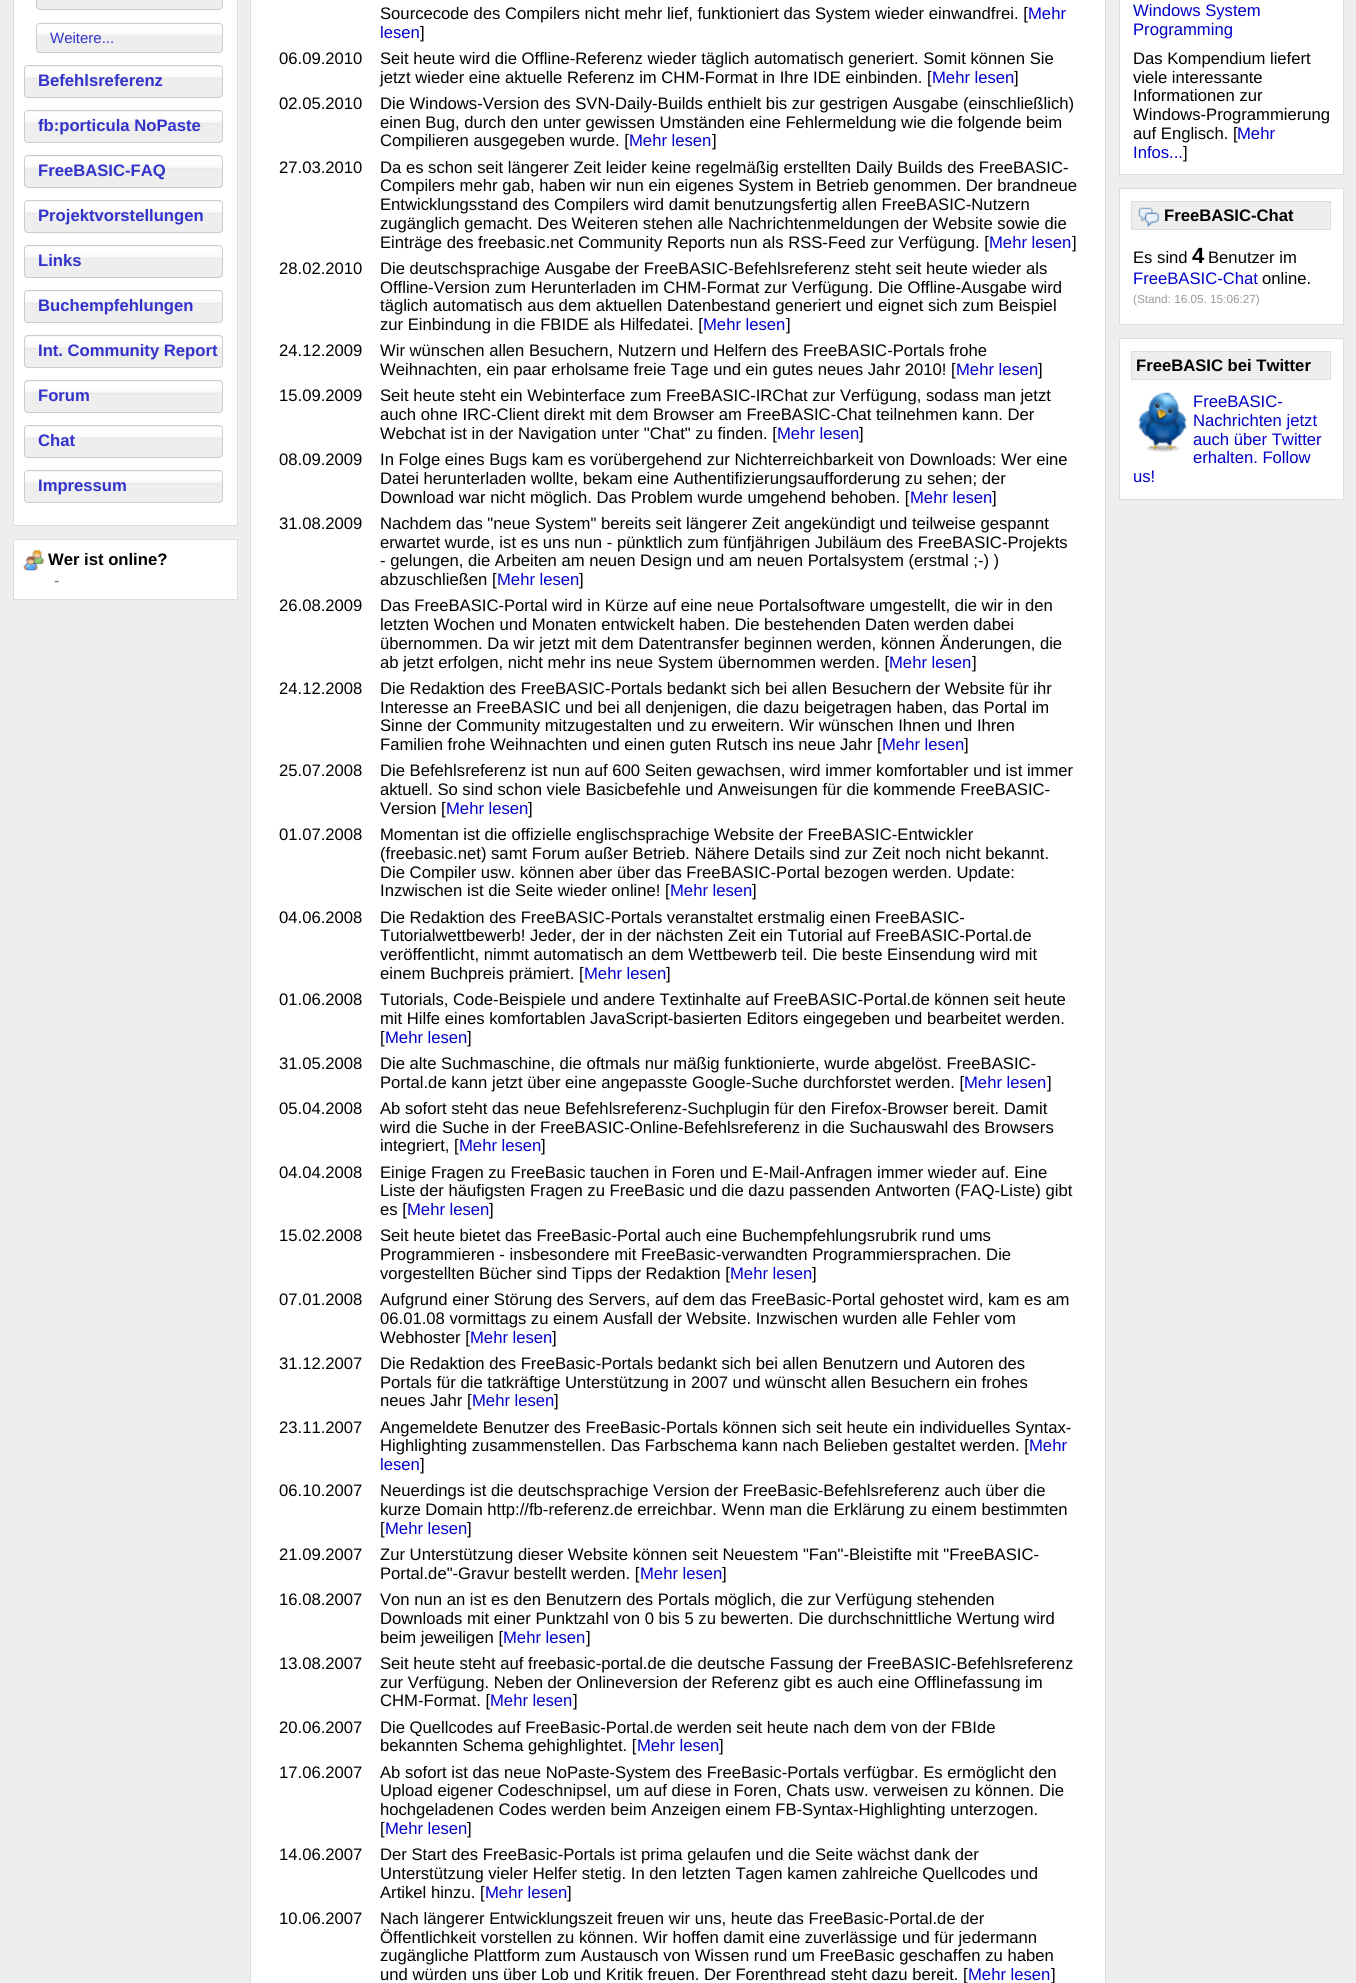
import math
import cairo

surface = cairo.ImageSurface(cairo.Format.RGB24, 1356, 1983)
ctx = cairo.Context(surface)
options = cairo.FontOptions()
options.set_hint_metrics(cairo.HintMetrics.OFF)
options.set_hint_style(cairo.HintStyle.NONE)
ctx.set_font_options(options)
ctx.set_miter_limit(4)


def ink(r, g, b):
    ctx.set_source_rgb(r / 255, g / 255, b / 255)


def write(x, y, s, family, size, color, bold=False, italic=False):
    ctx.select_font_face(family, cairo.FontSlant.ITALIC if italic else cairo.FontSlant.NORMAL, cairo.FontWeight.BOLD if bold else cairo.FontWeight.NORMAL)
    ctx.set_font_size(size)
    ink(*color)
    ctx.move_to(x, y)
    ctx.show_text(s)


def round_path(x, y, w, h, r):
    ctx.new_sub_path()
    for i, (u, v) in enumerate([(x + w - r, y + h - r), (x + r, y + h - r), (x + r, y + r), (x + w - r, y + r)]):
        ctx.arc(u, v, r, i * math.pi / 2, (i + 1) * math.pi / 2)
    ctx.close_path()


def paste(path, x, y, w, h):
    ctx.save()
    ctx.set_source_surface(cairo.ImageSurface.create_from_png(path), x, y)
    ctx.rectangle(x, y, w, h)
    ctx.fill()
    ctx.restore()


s1 = dict(family="Liberation Sans", size=15, color=(51, 51, 204))
s2 = dict(family="Liberation Sans", size=16.65, color=(51, 51, 204), bold=True)
s3 = dict(family="Liberation Sans", size=16.65, color=(0, 0, 0), bold=True)
s4 = dict(family="Liberation Sans", size=16.65, color=(119, 119, 119))
s5 = dict(family="Liberation Sans", size=16.65, color=(0, 0, 0))
s6 = dict(family="Liberation Sans", size=16.65, color=(0, 0, 204))
s7 = dict(family="Liberation Sans", size=22, color=(0, 0, 0), bold=True)
s8 = dict(family="Liberation Sans", size=11.75, color=(153, 153, 153))

ink(238, 238, 238)
ctx.paint()
ink(255, 255, 255)
ctx.rectangle(13.5, -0.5, 224, 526)
ctx.fill_preserve()
ink(221, 221, 221)
ctx.set_line_width(1)
ctx.stroke()
ink(238, 238, 238)
round_path(36.5, -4.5, 186, 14, 3.5)
ctx.fill_preserve()
ink(204, 204, 204)
ctx.stroke()
ink(238, 238, 238)
round_path(36, 23, 187, 30, 4)
ctx.fill()
paste("pic1.png", 36, 24, 187, 11)
round_path(36.5, 23.5, 186, 29, 3.5)
ink(204, 204, 204)
ctx.stroke()
write(50, 43, "Weitere...", **s1)
ink(238, 238, 238)
round_path(24, 65, 199, 33, 4)
ctx.fill()
paste("pic2.png", 24, 66, 199, 13)
round_path(24.5, 65.5, 198, 32, 3.5)
ink(204, 204, 204)
ctx.stroke()
write(38, 86, "Befehlsreferenz", **s2)
ink(238, 238, 238)
round_path(24, 110, 199, 33, 4)
ctx.fill()
paste("pic2.png", 24, 111, 199, 13)
round_path(24.5, 110.5, 198, 32, 3.5)
ink(204, 204, 204)
ctx.stroke()
write(38, 131, "fb:porticula NoPaste", **s2)
ink(238, 238, 238)
round_path(24, 155, 199, 33, 4)
ctx.fill()
paste("pic2.png", 24, 156, 199, 13)
round_path(24.5, 155.5, 198, 32, 3.5)
ink(204, 204, 204)
ctx.stroke()
write(38, 176, "FreeBASIC-FAQ", **s2)
ink(238, 238, 238)
round_path(24, 200, 199, 33, 4)
ctx.fill()
paste("pic2.png", 24, 201, 199, 13)
round_path(24.5, 200.5, 198, 32, 3.5)
ink(204, 204, 204)
ctx.stroke()
write(38, 221, "Projektvorstellungen", **s2)
ink(238, 238, 238)
round_path(24, 245, 199, 33, 4)
ctx.fill()
paste("pic2.png", 24, 246, 199, 13)
round_path(24.5, 245.5, 198, 32, 3.5)
ink(204, 204, 204)
ctx.stroke()
write(38, 266, "Links", **s2)
ink(238, 238, 238)
round_path(24, 290, 199, 33, 4)
ctx.fill()
paste("pic2.png", 24, 291, 199, 13)
round_path(24.5, 290.5, 198, 32, 3.5)
ink(204, 204, 204)
ctx.stroke()
write(38, 311, "Buchempfehlungen", **s2)
ink(238, 238, 238)
round_path(24, 335, 199, 33, 4)
ctx.fill()
paste("pic2.png", 24, 336, 199, 13)
round_path(24.5, 335.5, 198, 32, 3.5)
ink(204, 204, 204)
ctx.stroke()
write(38, 356, "Int. Community Report", **s2)
ink(238, 238, 238)
round_path(24, 380, 199, 33, 4)
ctx.fill()
paste("pic2.png", 24, 381, 199, 13)
round_path(24.5, 380.5, 198, 32, 3.5)
ink(204, 204, 204)
ctx.stroke()
write(38, 401, "Forum", **s2)
ink(238, 238, 238)
round_path(24, 425, 199, 33, 4)
ctx.fill()
paste("pic2.png", 24, 426, 199, 13)
round_path(24.5, 425.5, 198, 32, 3.5)
ink(204, 204, 204)
ctx.stroke()
write(38, 446, "Chat", **s2)
ink(238, 238, 238)
round_path(24, 470, 199, 33, 4)
ctx.fill()
paste("pic2.png", 24, 471, 199, 13)
round_path(24.5, 470.5, 198, 32, 3.5)
ink(204, 204, 204)
ctx.stroke()
write(38, 491, "Impressum", **s2)
ink(255, 255, 255)
ctx.rectangle(13.5, 539.5, 224, 60)
ctx.fill_preserve()
ink(221, 221, 221)
ctx.stroke()
paste("pic3.png", 23, 550, 21, 21)
write(48, 565, "Wer ist online?", **s3)
write(54, 586, "-", **s4)
ink(255, 255, 255)
ctx.rectangle(250.5, -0.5, 855, 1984)
ctx.fill_preserve()
ink(221, 221, 221)
ctx.stroke()
write(380, 19, "Sourcecode des Compilers nicht mehr lief, funktioniert das System wieder einwandfrei. [", **s5)
write(1028, 19, "Mehr", **s6)
write(380, 38, "lesen", **s6)
write(420, 38, "]", **s5)
write(279, 64, "06.09.2010", **s5)
write(380, 64, "Seit heute wird die Offline-Referenz wieder täglich automatisch generiert. Somit können Sie", **s5)
write(380, 83, "jetzt wieder eine aktuelle Referenz im CHM-Format in Ihre IDE einbinden. [", **s5)
write(932, 83, "Mehr lesen", **s6)
write(1014, 83, "]", **s5)
write(279, 109, "02.05.2010", **s5)
write(380, 109, "Die Windows-Version des SVN-Daily-Builds enthielt bis zur gestrigen Ausgabe (einschließlich)", **s5)
write(380, 128, "einen Bug, durch den unter gewissen Umständen eine Fehlermeldung wie die folgende beim", **s5)
write(380, 146, "Compilieren ausgegeben wurde. [", **s5)
write(629, 146, "Mehr lesen", **s6)
write(712, 146, "]", **s5)
write(279, 173, "27.03.2010", **s5)
write(380, 173, "Da es schon seit längerer Zeit leider keine regelmäßig erstellten Daily Builds des FreeBASIC-", **s5)
write(380, 191, "Compilers mehr gab, haben wir nun ein eigenes System in Betrieb genommen. Der brandneue", **s5)
write(380, 210, "Entwicklungsstand des Compilers wird damit benutzungsfertig allen FreeBASIC-Nutzern", **s5)
write(380, 229, "zugänglich gemacht. Des Weiteren stehen alle Nachrichtenmeldungen der Website sowie die", **s5)
write(380, 248, "Einträge des freebasic.net Community Reports nun als RSS-Feed zur Verfügung. [", **s5)
write(989, 248, "Mehr lesen", **s6)
write(1072, 248, "]", **s5)
write(279, 274, "28.02.2010", **s5)
write(380, 274, "Die deutschsprachige Ausgabe der FreeBASIC-Befehlsreferenz steht seit heute wieder als", **s5)
write(380, 293, "Offline-Version zum Herunterladen im CHM-Format zur Verfügung. Die Offline-Ausgabe wird", **s5)
write(380, 311, "täglich automatisch aus dem aktuellen Datenbestand generiert und eignet sich zum Beispiel", **s5)
write(380, 330, "zur Einbindung in die FBIDE als Hilfedatei. [", **s5)
write(703, 330, "Mehr lesen", **s6)
write(786, 330, "]", **s5)
write(279, 356, "24.12.2009", **s5)
write(380, 356, "Wir wünschen allen Besuchern, Nutzern und Helfern des FreeBASIC-Portals frohe", **s5)
write(380, 375, "Weihnachten, ein paar erholsame freie Tage und ein gutes neues Jahr 2010! [", **s5)
write(956, 375, "Mehr lesen", **s6)
write(1038, 375, "]", **s5)
write(279, 401, "15.09.2009", **s5)
write(380, 401, "Seit heute steht ein Webinterface zum FreeBASIC-IRChat zur Verfügung, sodass man jetzt", **s5)
write(380, 420, "auch ohne IRC-Client direkt mit dem Browser am FreeBASIC-Chat teilnehmen kann. Der", **s5)
write(380, 439, "Webchat ist in der Navigation unter \"Chat\" zu finden. [", **s5)
write(777, 439, "Mehr lesen", **s6)
write(859, 439, "]", **s5)
write(279, 465, "08.09.2009", **s5)
write(380, 465, "In Folge eines Bugs kam es vorübergehend zur Nichterreichbarkeit von Downloads: Wer eine", **s5)
write(380, 484, "Datei herunterladen wollte, bekam eine Authentifizierungsaufforderung zu sehen; der", **s5)
write(380, 503, "Download war nicht möglich. Das Problem wurde umgehend behoben. [", **s5)
write(910, 503, "Mehr lesen", **s6)
write(992, 503, "]", **s5)
write(279, 529, "31.08.2009", **s5)
write(380, 529, "Nachdem das \"neue System\" bereits seit längerer Zeit angekündigt und teilweise gespannt", **s5)
write(380, 548, "erwartet wurde, ist es uns nun - pünktlich zum fünfjährigen Jubiläum des FreeBASIC-Projekts", **s5)
write(380, 566, "- gelungen, die Arbeiten am neuen Design und am neuen Portalsystem (erstmal ;-) )", **s5)
write(380, 585, "abzuschließen [", **s5)
write(497, 585, "Mehr lesen", **s6)
write(579, 585, "]", **s5)
write(279, 611, "26.08.2009", **s5)
write(380, 611, "Das FreeBASIC-Portal wird in Kürze auf eine neue Portalsoftware umgestellt, die wir in den", **s5)
write(380, 630, "letzten Wochen und Monaten entwickelt haben. Die bestehenden Daten werden dabei", **s5)
write(380, 649, "übernommen. Da wir jetzt mit dem Datentransfer beginnen werden, können Änderungen, die", **s5)
write(380, 668, "ab jetzt erfolgen, nicht mehr ins neue System übernommen werden. [", **s5)
write(889, 668, "Mehr lesen", **s6)
write(972, 668, "]", **s5)
write(279, 694, "24.12.2008", **s5)
write(380, 694, "Die Redaktion des FreeBASIC-Portals bedankt sich bei allen Besuchern der Website für ihr", **s5)
write(380, 713, "Interesse an FreeBASIC und bei all denjenigen, die dazu beigetragen haben, das Portal im", **s5)
write(380, 731, "Sinne der Community mitzugestalten und zu erweitern. Wir wünschen Ihnen und Ihren", **s5)
write(380, 750, "Familien frohe Weihnachten und einen guten Rutsch ins neue Jahr [", **s5)
write(882, 750, "Mehr lesen", **s6)
write(964, 750, "]", **s5)
write(279, 776, "25.07.2008", **s5)
write(380, 776, "Die Befehlsreferenz ist nun auf 600 Seiten gewachsen, wird immer komfortabler und ist immer", **s5)
write(380, 795, "aktuell. So sind schon viele Basicbefehle und Anweisungen für die kommende FreeBASIC-", **s5)
write(380, 814, "Version [", **s5)
write(446, 814, "Mehr lesen", **s6)
write(528, 814, "]", **s5)
write(279, 840, "01.07.2008", **s5)
write(380, 840, "Momentan ist die offizielle englischsprachige Website der FreeBASIC-Entwickler", **s5)
write(380, 859, "(freebasic.net) samt Forum außer Betrieb. Nähere Details sind zur Zeit noch nicht bekannt.", **s5)
write(380, 878, "Die Compiler usw. können aber über das FreeBASIC-Portal bezogen werden. Update:", **s5)
write(380, 896, "Inzwischen ist die Seite wieder online! [", **s5)
write(670, 896, "Mehr lesen", **s6)
write(752, 896, "]", **s5)
write(279, 923, "04.06.2008", **s5)
write(380, 923, "Die Redaktion des FreeBASIC-Portals veranstaltet erstmalig einen FreeBASIC-", **s5)
write(380, 941, "Tutorialwettbewerb! Jeder, der in der nächsten Zeit ein Tutorial auf FreeBASIC-Portal.de", **s5)
write(380, 960, "veröffentlicht, nimmt automatisch an dem Wettbewerb teil. Die beste Einsendung wird mit", **s5)
write(380, 979, "einem Buchpreis prämiert. [", **s5)
write(584, 979, "Mehr lesen", **s6)
write(666, 979, "]", **s5)
write(279, 1005, "01.06.2008", **s5)
write(380, 1005, "Tutorials, Code-Beispiele und andere Textinhalte auf FreeBASIC-Portal.de können seit heute", **s5)
write(380, 1024, "mit Hilfe eines komfortablen JavaScript-basierten Editors eingegeben und bearbeitet werden.", **s5)
write(380, 1043, "[", **s5)
write(385, 1043, "Mehr lesen", **s6)
write(467, 1043, "]", **s5)
write(279, 1069, "31.05.2008", **s5)
write(380, 1069, "Die alte Suchmaschine, die oftmals nur mäßig funktionierte, wurde abgelöst. FreeBASIC-", **s5)
write(380, 1088, "Portal.de kann jetzt über eine angepasste Google-Suche durchforstet werden. [", **s5)
write(964, 1088, "Mehr lesen", **s6)
write(1047, 1088, "]", **s5)
write(279, 1114, "05.04.2008", **s5)
write(380, 1114, "Ab sofort steht das neue Befehlsreferenz-Suchplugin für den Firefox-Browser bereit. Damit", **s5)
write(380, 1133, "wird die Suche in der FreeBASIC-Online-Befehlsreferenz in die Suchauswahl des Browsers", **s5)
write(380, 1151, "integriert, [", **s5)
write(459, 1151, "Mehr lesen", **s6)
write(541, 1151, "]", **s5)
write(279, 1178, "04.04.2008", **s5)
write(380, 1178, "Einige Fragen zu FreeBasic tauchen in Foren und E-Mail-Anfragen immer wieder auf. Eine", **s5)
write(380, 1196, "Liste der häufigsten Fragen zu FreeBasic und die dazu passenden Antworten (FAQ-Liste) gibt", **s5)
write(380, 1215, "es [", **s5)
write(407, 1215, "Mehr lesen", **s6)
write(489, 1215, "]", **s5)
write(279, 1241, "15.02.2008", **s5)
write(380, 1241, "Seit heute bietet das FreeBasic-Portal auch eine Buchempfehlungsrubrik rund ums", **s5)
write(380, 1260, "Programmieren - insbesondere mit FreeBasic-verwandten Programmiersprachen. Die", **s5)
write(380, 1279, "vorgestellten Bücher sind Tipps der Redaktion [", **s5)
write(730, 1279, "Mehr lesen", **s6)
write(812, 1279, "]", **s5)
write(279, 1305, "07.01.2008", **s5)
write(380, 1305, "Aufgrund einer Störung des Servers, auf dem das FreeBasic-Portal gehostet wird, kam es am", **s5)
write(380, 1324, "06.01.08 vormittags zu einem Ausfall der Website. Inzwischen wurden alle Fehler vom", **s5)
write(380, 1343, "Webhoster [", **s5)
write(470, 1343, "Mehr lesen", **s6)
write(552, 1343, "]", **s5)
write(279, 1369, "31.12.2007", **s5)
write(380, 1369, "Die Redaktion des FreeBasic-Portals bedankt sich bei allen Benutzern und Autoren des", **s5)
write(380, 1388, "Portals für die tatkräftige Unterstützung in 2007 und wünscht allen Besuchern ein frohes", **s5)
write(380, 1406, "neues Jahr [", **s5)
write(472, 1406, "Mehr lesen", **s6)
write(554, 1406, "]", **s5)
write(279, 1433, "23.11.2007", **s5)
write(380, 1433, "Angemeldete Benutzer des FreeBasic-Portals können sich seit heute ein individuelles Syntax-", **s5)
write(380, 1451, "Highlighting zusammenstellen. Das Farbschema kann nach Belieben gestaltet werden. [", **s5)
write(1029, 1451, "Mehr", **s6)
write(380, 1470, "lesen", **s6)
write(420, 1470, "]", **s5)
write(279, 1496, "06.10.2007", **s5)
write(380, 1496, "Neuerdings ist die deutschsprachige Version der FreeBasic-Befehlsreferenz auch über die", **s5)
write(380, 1515, "kurze Domain http://fb-referenz.de erreichbar. Wenn man die Erklärung zu einem bestimmten", **s5)
write(380, 1534, "[", **s5)
write(385, 1534, "Mehr lesen", **s6)
write(467, 1534, "]", **s5)
write(279, 1560, "21.09.2007", **s5)
write(380, 1560, "Zur Unterstützung dieser Website können seit Neuestem \"Fan\"-Bleistifte mit \"FreeBASIC-", **s5)
write(380, 1579, "Portal.de\"-Gravur bestellt werden. [", **s5)
write(640, 1579, "Mehr lesen", **s6)
write(722, 1579, "]", **s5)
write(279, 1605, "16.08.2007", **s5)
write(380, 1605, "Von nun an ist es den Benutzern des Portals möglich, die zur Verfügung stehenden", **s5)
write(380, 1624, "Downloads mit einer Punktzahl von 0 bis 5 zu bewerten. Die durchschnittliche Wertung wird", **s5)
write(380, 1643, "beim jeweiligen [", **s5)
write(503, 1643, "Mehr lesen", **s6)
write(586, 1643, "]", **s5)
write(279, 1669, "13.08.2007", **s5)
write(380, 1669, "Seit heute steht auf freebasic-portal.de die deutsche Fassung der FreeBASIC-Befehlsreferenz", **s5)
write(380, 1688, "zur Verfügung. Neben der Onlineversion der Referenz gibt es auch eine Offlinefassung im", **s5)
write(380, 1706, "CHM-Format. [", **s5)
write(490, 1706, "Mehr lesen", **s6)
write(573, 1706, "]", **s5)
write(279, 1733, "20.06.2007", **s5)
write(380, 1733, "Die Quellcodes auf FreeBasic-Portal.de werden seit heute nach dem von der FBIde", **s5)
write(380, 1751, "bekannten Schema gehighlightet. [", **s5)
write(637, 1751, "Mehr lesen", **s6)
write(719, 1751, "]", **s5)
write(279, 1778, "17.06.2007", **s5)
write(380, 1778, "Ab sofort ist das neue NoPaste-System des FreeBasic-Portals verfügbar. Es ermöglicht den", **s5)
write(380, 1796, "Upload eigener Codeschnipsel, um auf diese in Foren, Chats usw. verweisen zu können. Die", **s5)
write(380, 1815, "hochgeladenen Codes werden beim Anzeigen einem FB-Syntax-Highlighting unterzogen.", **s5)
write(380, 1834, "[", **s5)
write(385, 1834, "Mehr lesen", **s6)
write(467, 1834, "]", **s5)
write(279, 1860, "14.06.2007", **s5)
write(380, 1860, "Der Start des FreeBasic-Portals ist prima gelaufen und die Seite wächst dank der", **s5)
write(380, 1879, "Unterstützung vieler Helfer stetig. In den letzten Tagen kamen zahlreiche Quellcodes und", **s5)
write(380, 1898, "Artikel hinzu. [", **s5)
write(485, 1898, "Mehr lesen", **s6)
write(567, 1898, "]", **s5)
write(279, 1924, "10.06.2007", **s5)
write(380, 1924, "Nach längerer Entwicklungszeit freuen wir uns, heute das FreeBasic-Portal.de der", **s5)
write(380, 1943, "Öffentlichkeit vorstellen zu können. Wir hoffen damit eine zuverlässige und für jedermann", **s5)
write(380, 1961, "zugängliche Plattform zum Austausch von Wissen rund um FreeBasic geschaffen zu haben", **s5)
write(380, 1980, "und würden uns über Lob und Kritik freuen. Der Forenthread steht dazu bereit. [", **s5)
write(968, 1980, "Mehr lesen", **s6)
write(1051, 1980, "]", **s5)
ink(255, 255, 255)
ctx.rectangle(1119.5, -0.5, 224, 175)
ctx.fill_preserve()
ink(221, 221, 221)
ctx.stroke()
write(1133, 16, "Windows System", **s6)
write(1133, 35, "Programming", **s6)
write(1133, 64, "Das Kompendium liefert", **s5)
write(1133, 83, "viele interessante", **s5)
write(1133, 101, "Informationen zur", **s5)
write(1133, 120, "Windows-Programmierung", **s5)
write(1133, 139, "auf Englisch. [", **s5)
write(1237, 139, "Mehr", **s6)
write(1133, 158, "Infos...", **s6)
write(1183, 158, "]", **s5)
ink(255, 255, 255)
ctx.rectangle(1119.5, 188.5, 224, 136)
ctx.fill_preserve()
ink(221, 221, 221)
ctx.stroke()
ink(238, 238, 238)
ctx.rectangle(1131.5, 201.5, 199, 28)
ctx.fill_preserve()
ink(221, 221, 221)
ctx.stroke()
paste("pic4.png", 1138, 207, 21, 20)
write(1164, 221, "FreeBASIC-Chat", **s3)
write(1133, 263, "Es sind", **s5)
write(1192, 263, "4", **s7)
write(1208, 263, "Benutzer im", **s5)
write(1133, 284, "FreeBASIC-Chat", **s6)
write(1262, 284, "online.", **s5)
write(1133, 303, "(Stand: 16.05. 15:06:27)", **s8)
ink(255, 255, 255)
ctx.rectangle(1119.5, 338.5, 224, 161)
ctx.fill_preserve()
ink(221, 221, 221)
ctx.stroke()
ink(238, 238, 238)
ctx.rectangle(1131.5, 351.5, 199, 28)
ctx.fill_preserve()
ink(221, 221, 221)
ctx.stroke()
write(1136, 371, "FreeBASIC bei Twitter", **s3)
paste("pic5.png", 1138, 392, 49, 60)
write(1193, 407, "FreeBASIC-", **s6)
write(1193, 426, "Nachrichten jetzt", **s6)
write(1193, 445, "auch über Twitter", **s6)
write(1193, 463, "erhalten. Follow", **s6)
write(1133, 482, "us!", **s6)
surface.write_to_png("screenshot.png")
